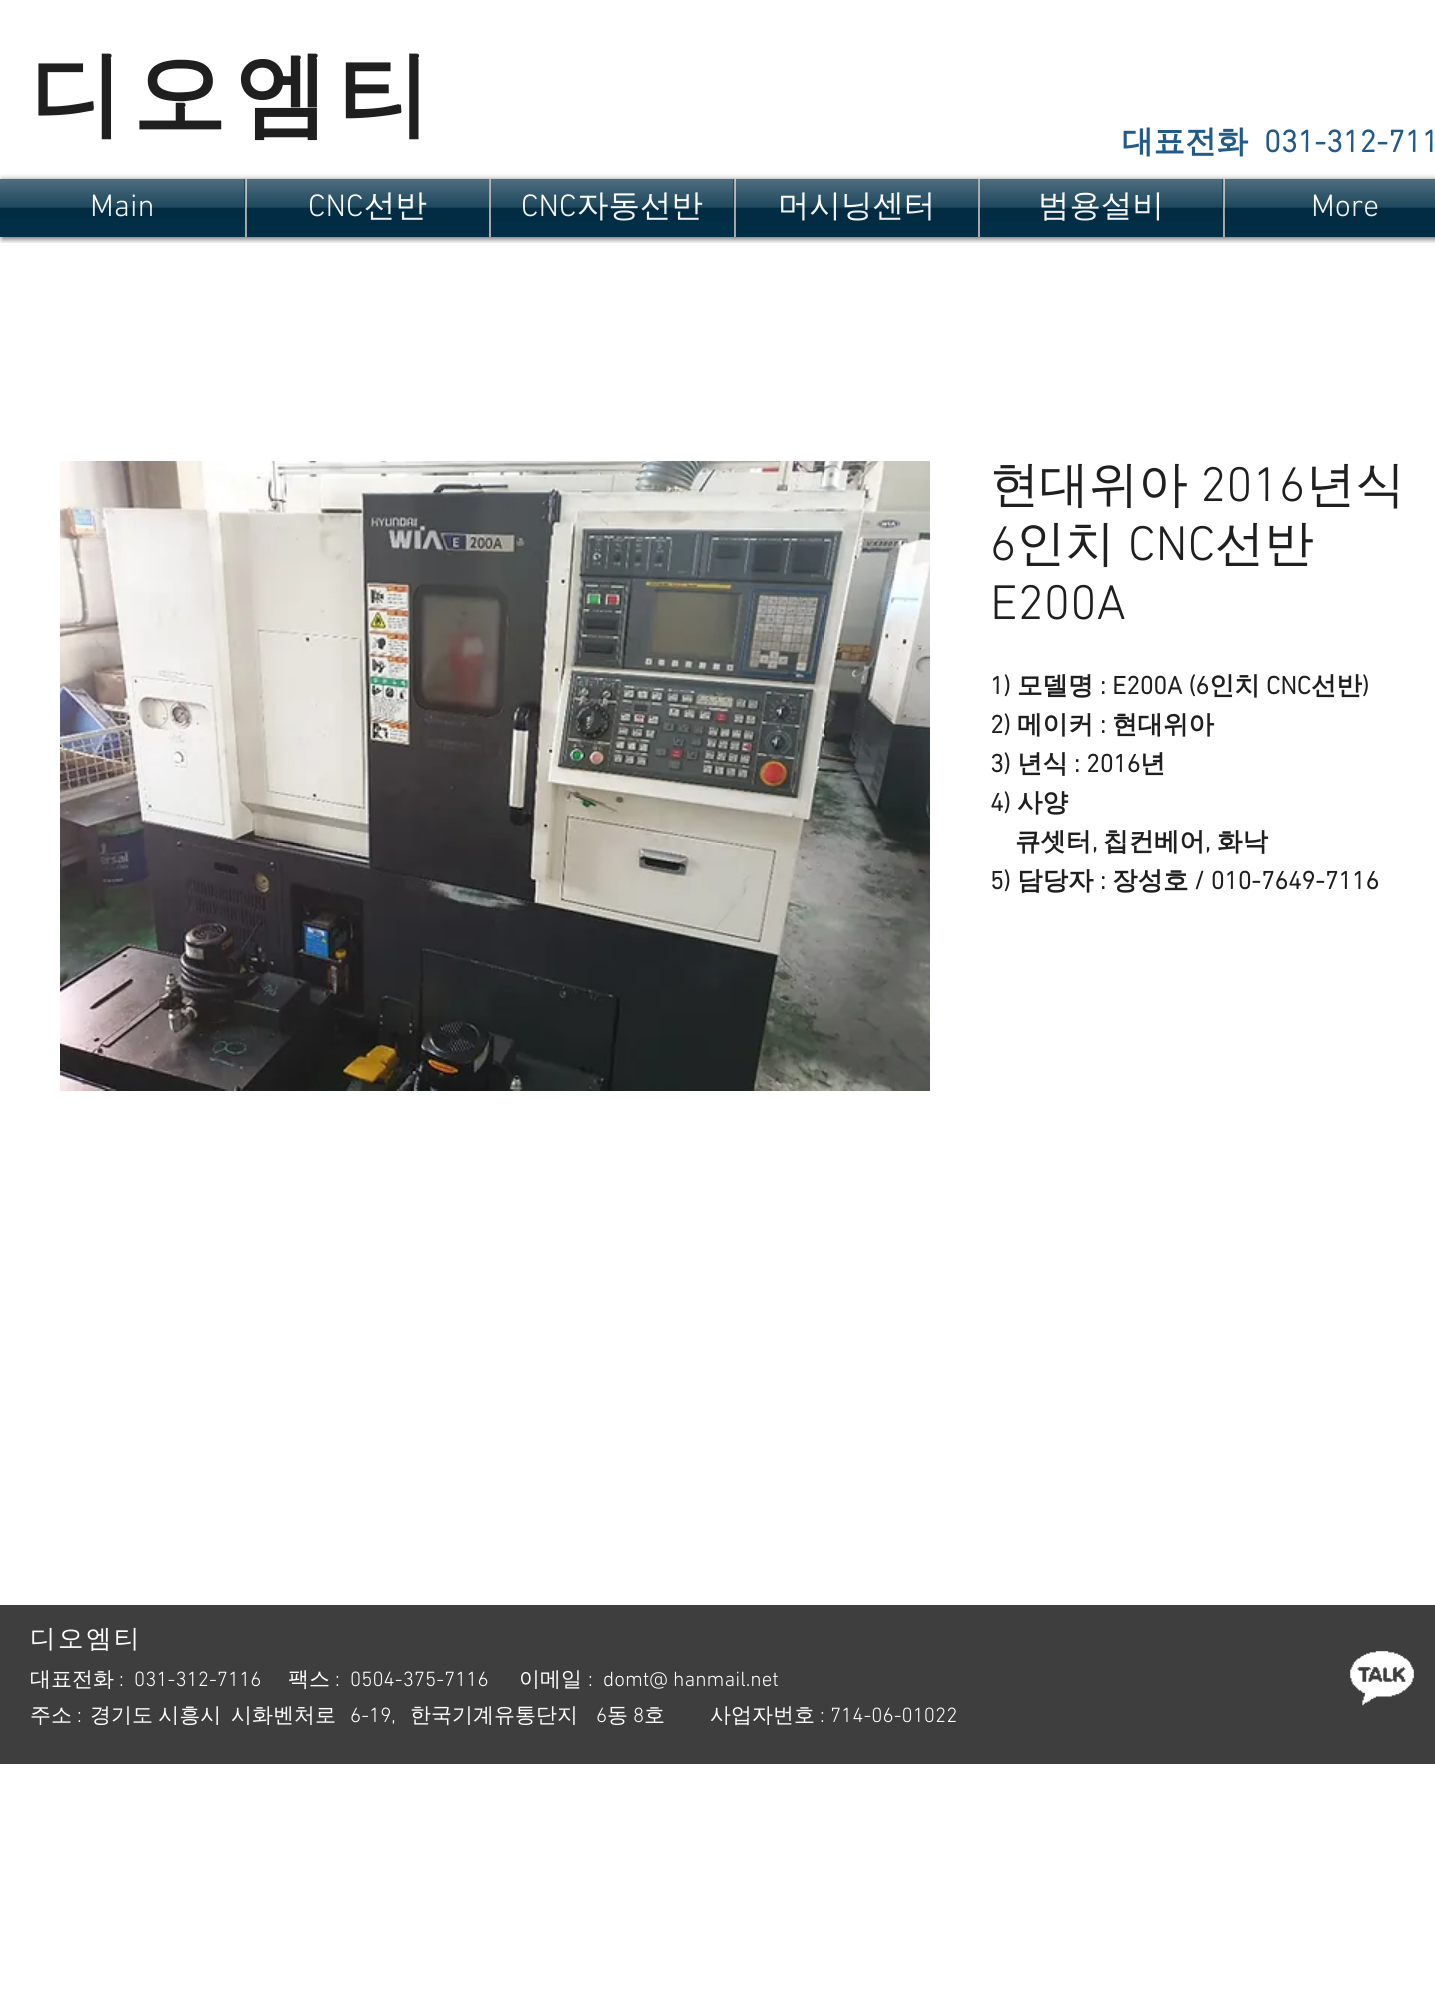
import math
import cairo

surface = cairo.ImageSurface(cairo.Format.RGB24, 1435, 2014)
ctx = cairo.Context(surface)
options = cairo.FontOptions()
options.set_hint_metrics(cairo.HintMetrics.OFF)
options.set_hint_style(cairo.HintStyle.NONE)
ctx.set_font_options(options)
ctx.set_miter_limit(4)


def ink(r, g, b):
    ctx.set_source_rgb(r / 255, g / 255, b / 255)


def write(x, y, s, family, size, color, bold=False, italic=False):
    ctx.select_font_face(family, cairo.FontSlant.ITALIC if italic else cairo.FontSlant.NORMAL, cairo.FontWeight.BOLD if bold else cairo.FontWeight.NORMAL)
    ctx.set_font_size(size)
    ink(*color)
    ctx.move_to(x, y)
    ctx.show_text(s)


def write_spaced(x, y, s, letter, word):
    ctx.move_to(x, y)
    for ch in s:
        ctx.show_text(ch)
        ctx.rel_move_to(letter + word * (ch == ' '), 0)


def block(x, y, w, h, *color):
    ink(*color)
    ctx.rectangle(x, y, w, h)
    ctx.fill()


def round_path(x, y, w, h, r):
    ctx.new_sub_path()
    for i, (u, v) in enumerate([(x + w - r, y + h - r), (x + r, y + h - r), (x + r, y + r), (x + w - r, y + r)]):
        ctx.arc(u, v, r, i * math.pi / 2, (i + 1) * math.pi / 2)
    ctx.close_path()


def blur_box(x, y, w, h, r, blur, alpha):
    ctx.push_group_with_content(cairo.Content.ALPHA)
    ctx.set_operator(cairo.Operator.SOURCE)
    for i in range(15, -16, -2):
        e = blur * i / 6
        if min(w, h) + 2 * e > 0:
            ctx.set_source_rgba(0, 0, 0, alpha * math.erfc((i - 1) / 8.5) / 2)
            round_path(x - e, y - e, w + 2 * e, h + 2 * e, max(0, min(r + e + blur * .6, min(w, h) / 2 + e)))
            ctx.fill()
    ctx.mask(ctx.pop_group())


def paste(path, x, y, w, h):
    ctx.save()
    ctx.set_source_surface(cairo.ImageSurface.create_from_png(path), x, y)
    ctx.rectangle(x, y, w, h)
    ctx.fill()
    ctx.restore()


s1 = dict(family="WenQuanYi Zen Hei", size=31.5, color=(34, 90, 138), bold=True)
s2 = dict(family="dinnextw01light", size=31.5, color=(34, 90, 138), bold=True)
s3 = dict(family="dinnextw01light Light", size=31.5, color=(255, 255, 255))
s4 = dict(family="WenQuanYi Zen Hei Medium", size=31.5, color=(255, 255, 255))
s5 = dict(family="WenQuanYi Zen Hei Medium", size=49.5, color=(31, 31, 31))
s6 = dict(family="dinnextw01light Light", size=49.5, color=(31, 31, 31))
s7 = dict(family="dinnextw01light", size=25.5, color=(31, 31, 31), bold=True)
s8 = dict(family="WenQuanYi Zen Hei", size=25.5, color=(31, 31, 31), bold=True)
s9 = dict(family="WenQuanYi Zen Hei Medium", size=21, color=(255, 255, 255))
s10 = dict(family="dinnextw01light Light", size=21, color=(255, 255, 255))

ink(255, 255, 255)
ctx.paint()
ctx.select_font_face("WenQuanYi Zen Hei", cairo.FontSlant.NORMAL, cairo.FontWeight.BOLD)
ctx.set_font_size(93)
ink(31, 31, 31)
write_spaced(30, 126, "디오엠티", 9.5, 0)
write(1122, 152, "대표전화", **s1)
write(1264, 152, "031-312-711", **s2)
ink(0, 0, 0)
blur_box(2, 180, 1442, 59, 0, 3, 0.6)
block(0, 179, 245, 58, 1, 47, 71)
write(90, 216, "Main", **s3)
paste("pic1.png", 0, 179, 245, 40)
block(247, 179, 242, 58, 1, 47, 71)
block(245, 179, 2, 58, 169, 169, 169)
write(308, 216, "CNC", **s3)
write(364, 216, "선반", **s4)
paste("pic2.png", 246, 179, 243, 58)
block(491, 179, 243, 58, 1, 47, 71)
block(489, 179, 2, 58, 169, 169, 169)
write(521, 216, "CNC", **s3)
write(577, 216, "자동선반", **s4)
paste("pic3.png", 490, 179, 244, 42)
block(736, 179, 242, 58, 1, 47, 71)
block(734, 179, 2, 58, 169, 169, 169)
write(778, 216, "머시닝센터", **s4)
paste("pic4.png", 735, 179, 243, 58)
block(980, 179, 243, 58, 1, 47, 71)
block(978, 179, 2, 58, 169, 169, 169)
write(1038, 216, "범용설비", **s4)
paste("pic5.png", 979, 179, 244, 42)
block(1225, 179, 210, 58, 1, 47, 71)
block(1223, 179, 2, 58, 169, 169, 169)
write(1311, 216, "More", **s3)
paste("pic6.png", 1224, 179, 211, 58)
block(0, 243, 1435, 2, 255, 255, 255)
paste("pic7.png", 60, 461, 870, 630)
write(990, 501, "현대위아", **s5)
write(1200, 501, "2016", **s6)
write(1306, 501, "년식", **s5)
write(990, 560, "6", **s6)
write(1016, 560, "인치", **s5)
write(1128, 560, "CNC", **s6)
write(1215, 560, "선반", **s5)
write(990, 619, "E200A", **s6)
write(990, 694, "1)", **s7)
write(1017, 694, "모델명", **s8)
write(1100, 694, ": E200A (6", **s7)
write(1209, 694, "인치", **s8)
write(1266, 694, "CNC", **s7)
write(1311, 694, "선반", **s8)
write(1362, 694, ")", **s7)
write(990, 733, "2)", **s7)
write(1017, 733, "메이커", **s8)
write(1100, 733, ":", **s7)
write(1112, 733, "현대위아", **s8)
write(990, 772, "3)", **s7)
write(1017, 772, "년식", **s8)
write(1074, 772, ": 2016", **s7)
write(1140, 772, "년", **s8)
write(990, 811, "4)", **s7)
write(1017, 811, "사양", **s8)
write(1015, 850, "큐셋터", **s8)
write(1092, 850, ",", **s7)
write(1103, 850, "칩컨베어", **s8)
write(1205, 850, ",", **s7)
write(1217, 850, "화낙", **s8)
write(990, 889, "5)", **s7)
write(1017, 889, "담당자", **s8)
write(1100, 889, ":", **s7)
write(1112, 889, "장성호", **s8)
write(1194, 889, "/ 010-7649-7116", **s7)
block(0, 1605, 1435, 159, 62, 62, 62)
ctx.select_font_face("WenQuanYi Zen Hei Medium")
ink(255, 255, 255)
write_spaced(30, 1647, "디오엠티", 2.5, 0)
write(30, 1686, "대표전화", **s9)
write(119, 1686, ":  031-312-7116", **s10)
write(288, 1686, "팩스", **s9)
write(335, 1686, ":  0504-375-7116", **s10)
write(519, 1686, "이메일", **s9)
write(588, 1686, ":  domt@ hanmail.net", **s10)
write(30, 1722, "주소", **s9)
write(77, 1722, ":", **s10)
ctx.select_font_face("WenQuanYi Zen Hei Medium")
write_spaced(90, 1722, "경기도 시흥시", 0, -1)
write(231, 1722, "시화벤처로", **s9)
write(350, 1722, "6-19,", **s10)
write(410, 1722, "한국기계유통단지", **s9)
write(596, 1722, "6", **s10)
write(607, 1722, "동", **s9)
write(633, 1722, "8", **s10)
write(644, 1722, "호", **s9)
write(710, 1722, "사업자번호", **s9)
write(820, 1722, ": 714-06-01022", **s10)
paste("pic8.png", 1350, 1651, 64, 55)
surface.write_to_png("screenshot.png")
